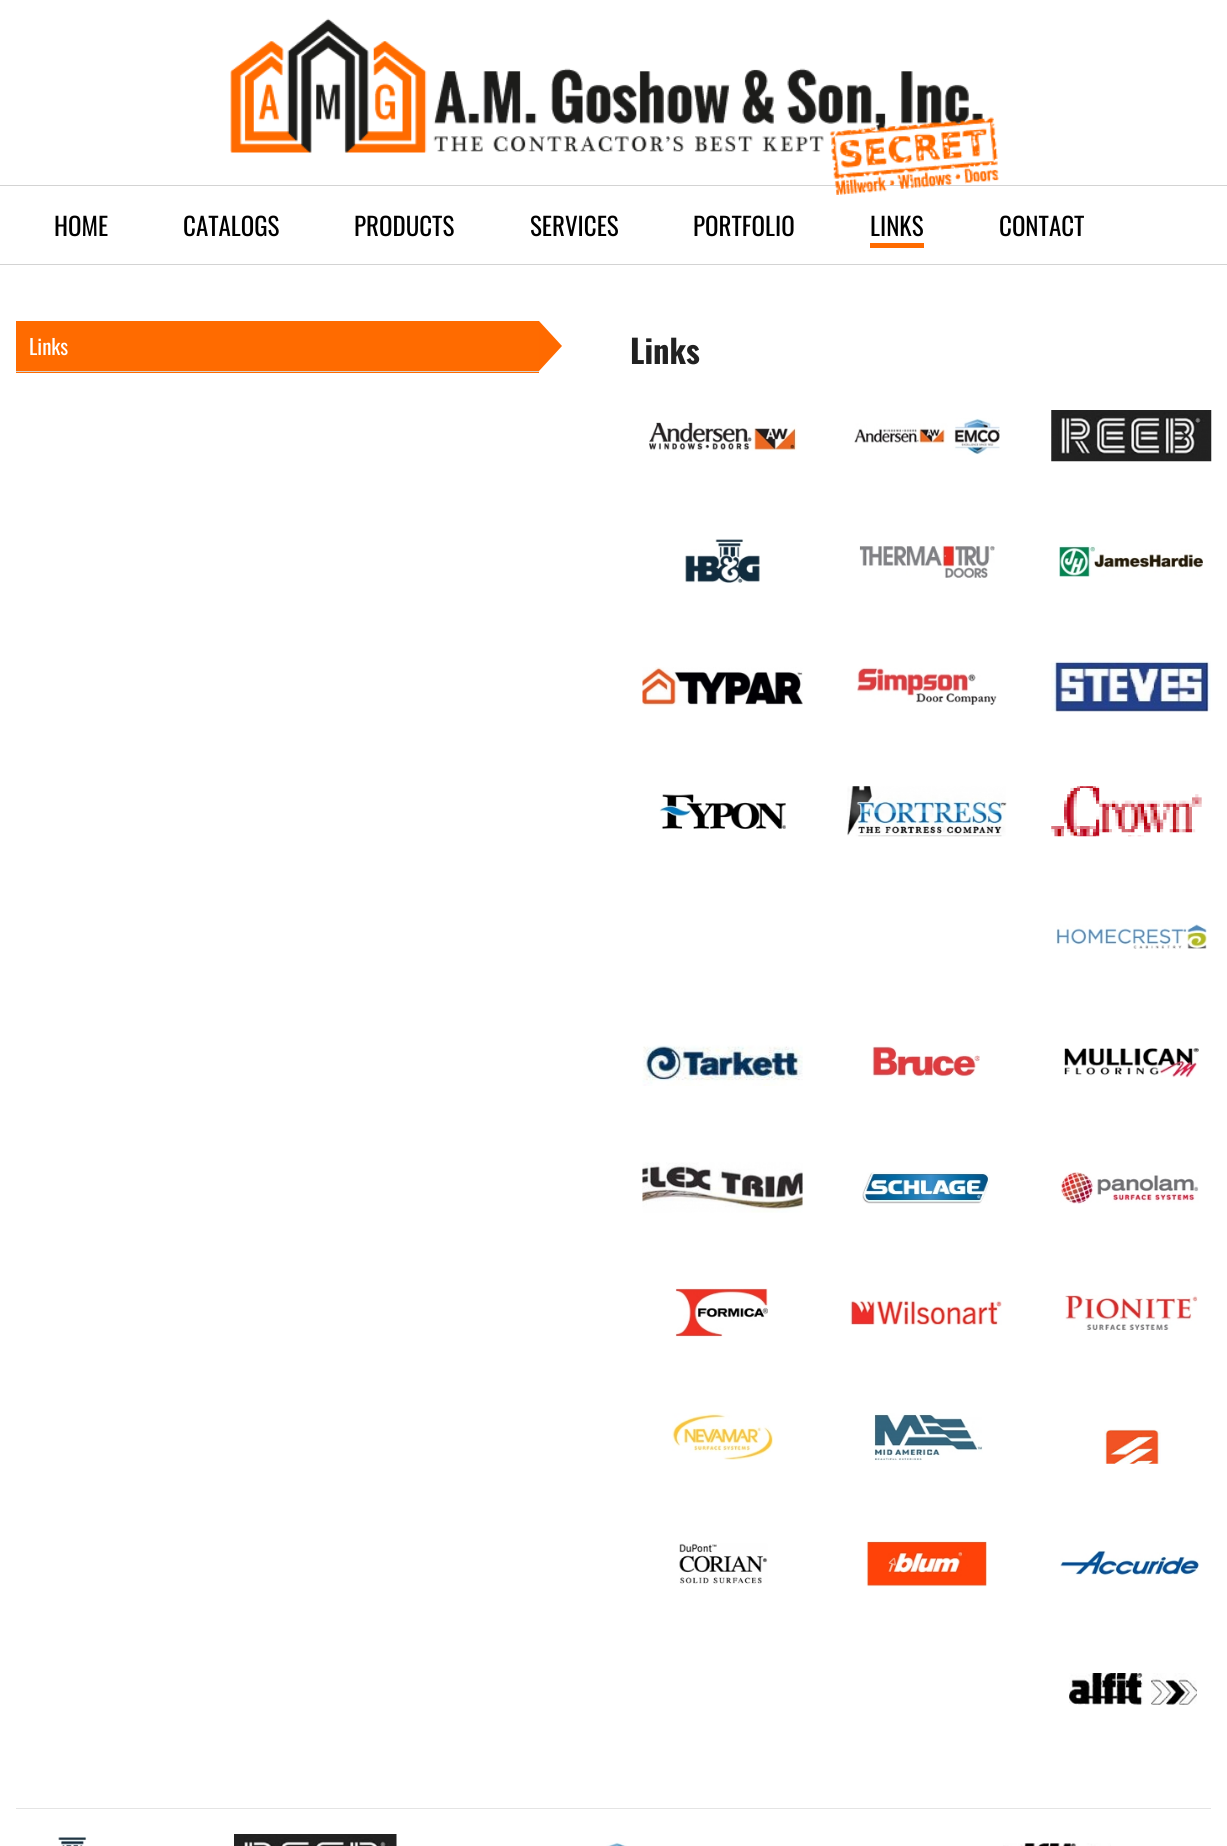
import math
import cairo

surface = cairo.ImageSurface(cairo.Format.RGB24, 1227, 1846)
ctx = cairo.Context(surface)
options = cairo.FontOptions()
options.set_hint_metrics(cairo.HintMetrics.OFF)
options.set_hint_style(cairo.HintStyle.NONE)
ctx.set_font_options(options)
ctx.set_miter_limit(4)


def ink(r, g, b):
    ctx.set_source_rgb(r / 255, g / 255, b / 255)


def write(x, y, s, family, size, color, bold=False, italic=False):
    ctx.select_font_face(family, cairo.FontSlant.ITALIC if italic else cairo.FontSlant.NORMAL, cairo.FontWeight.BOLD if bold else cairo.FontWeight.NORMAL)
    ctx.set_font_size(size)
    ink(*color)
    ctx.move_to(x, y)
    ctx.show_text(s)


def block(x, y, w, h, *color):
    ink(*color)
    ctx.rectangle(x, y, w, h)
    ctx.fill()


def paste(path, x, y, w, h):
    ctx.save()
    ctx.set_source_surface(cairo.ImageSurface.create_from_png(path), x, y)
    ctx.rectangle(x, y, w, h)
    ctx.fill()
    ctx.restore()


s1 = dict(family="Oswald", size=25, color=(0, 0, 0))
s2 = dict(family="Oswald", size=21, color=(255, 255, 255))
s3 = dict(family="Oswald", size=32.5, color=(33, 33, 33), bold=True)

ink(255, 255, 255)
ctx.paint()
block(0, 185, 1227, 1, 211, 211, 211)
paste("pic1.png", 230, 18, 769, 177)
block(0, 264, 1227, 1, 211, 211, 211)
write(54, 236, "HOME", **s1)
write(183, 236, "CATALOGS", **s1)
write(354, 236, "PRODUCTS", **s1)
write(530, 236, "SERVICES", **s1)
write(693, 236, "PORTFOLIO", **s1)
block(870, 243, 54, 5, 255, 107, 0)
write(870, 236, "LINKS", **s1)
write(999, 236, "CONTACT", **s1)
block(16, 321, 523, 52, 255, 107, 0)
block(16, 371, 523, 1, 211, 211, 211)
write(29, 355, "Links", **s2)
ink(255, 106, 0)
ctx.new_path()
ctx.move_to(539, 371)
ctx.line_to(539, 321)
ctx.line_to(562, 346)
ctx.close_path()
ctx.fill()
write(630, 364, "Links", **s3)
paste("pic2.png", 649, 422, 148, 29)
paste("pic3.png", 854, 418, 146, 37)
paste("pic4.png", 1051, 410, 161, 52)
paste("pic5.png", 685, 539, 75, 44)
paste("pic6.png", 859, 545, 136, 33)
paste("pic7.png", 1059, 545, 144, 32)
paste("pic8.png", 642, 667, 161, 39)
paste("pic9.png", 857, 667, 140, 38)
paste("pic10.png", 1051, 661, 160, 51)
paste("pic11.png", 659, 794, 127, 35)
paste("pic12.png", 847, 786, 160, 51)
paste("pic13.png", 1051, 786, 151, 51)
paste("pic14.png", 1056, 924, 151, 25)
paste("pic15.png", 642, 1045, 161, 41)
paste("pic16.png", 872, 1046, 108, 31)
paste("pic17.png", 1064, 1048, 135, 30)
paste("pic18.png", 642, 1162, 161, 51)
paste("pic19.png", 862, 1172, 128, 32)
paste("pic20.png", 1060, 1172, 139, 32)
paste("pic21.png", 675, 1288, 93, 49)
paste("pic22.png", 850, 1300, 152, 25)
paste("pic23.png", 1065, 1295, 133, 35)
paste("pic24.png", 672, 1413, 101, 47)
paste("pic25.png", 874, 1413, 109, 48)
paste("pic26.png", 1104, 1429, 57, 35)
paste("pic27.png", 679, 1543, 89, 41)
paste("pic28.png", 866, 1541, 121, 46)
paste("pic29.png", 1060, 1550, 140, 26)
paste("pic30.png", 1069, 1673, 128, 32)
block(16, 1808, 1195, 1, 228, 228, 228)
paste("pic31.png", 58, 1837, 29, 9)
paste("pic32.png", 234, 1834, 163, 12)
paste("pic33.png", 606, 1842, 21, 4)
paste("pic34.png", 1003, 1843, 108, 3)
surface.write_to_png("screenshot.png")
